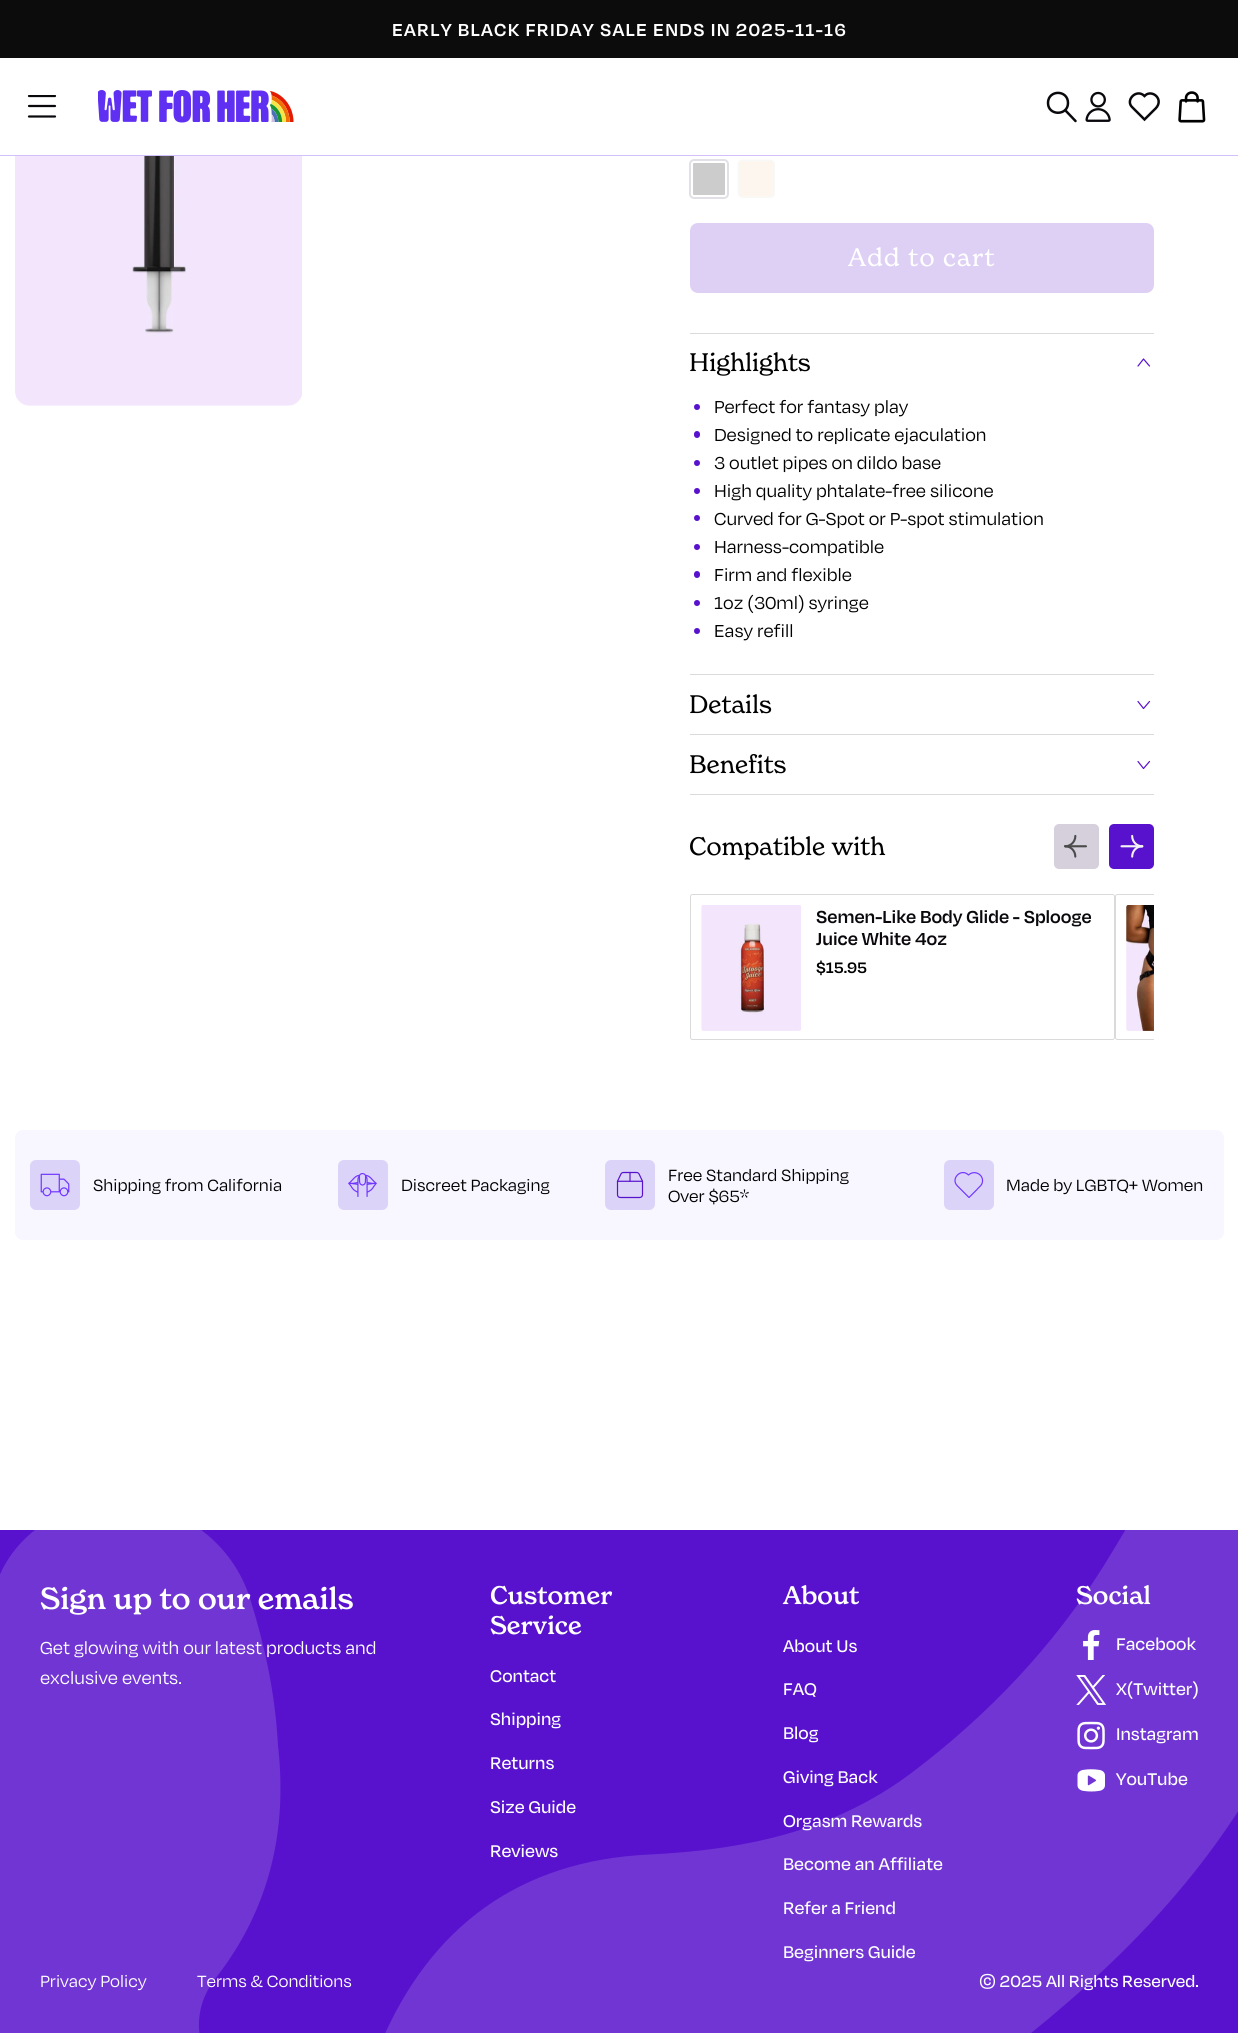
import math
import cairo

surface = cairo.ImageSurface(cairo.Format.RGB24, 1238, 2033)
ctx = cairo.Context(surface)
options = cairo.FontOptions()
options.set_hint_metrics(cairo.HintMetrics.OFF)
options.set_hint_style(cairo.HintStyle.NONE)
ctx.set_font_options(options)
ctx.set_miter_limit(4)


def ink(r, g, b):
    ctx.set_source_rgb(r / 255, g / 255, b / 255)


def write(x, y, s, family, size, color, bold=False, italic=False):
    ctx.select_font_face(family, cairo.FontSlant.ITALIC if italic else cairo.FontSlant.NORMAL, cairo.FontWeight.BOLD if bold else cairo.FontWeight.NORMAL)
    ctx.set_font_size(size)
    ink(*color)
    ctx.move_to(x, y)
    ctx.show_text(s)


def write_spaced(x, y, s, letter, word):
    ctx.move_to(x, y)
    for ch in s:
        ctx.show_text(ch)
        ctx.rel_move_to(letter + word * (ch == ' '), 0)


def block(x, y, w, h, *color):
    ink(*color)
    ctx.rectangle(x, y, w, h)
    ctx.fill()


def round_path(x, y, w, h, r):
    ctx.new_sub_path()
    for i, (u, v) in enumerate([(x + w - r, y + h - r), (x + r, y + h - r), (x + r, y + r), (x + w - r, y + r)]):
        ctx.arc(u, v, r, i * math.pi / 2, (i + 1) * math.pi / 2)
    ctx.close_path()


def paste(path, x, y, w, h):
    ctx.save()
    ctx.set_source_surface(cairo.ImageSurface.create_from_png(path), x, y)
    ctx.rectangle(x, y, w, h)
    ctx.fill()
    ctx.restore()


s1 = dict(family="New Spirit", size=25, color=(0, 0, 0))
s2 = dict(family="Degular", size=20, color=(0, 0, 0))
s3 = dict(family="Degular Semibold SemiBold", size=20, color=(10, 8, 12))
s4 = dict(family="Degular Semibold SemiBold", size=17.5, color=(0, 0, 0))
s5 = dict(family="Degular", size=18.75, color=(0, 0, 0))
s6 = dict(family="New Spirit Medium", size=30, color=(255, 255, 255))
s7 = dict(family="Degular", size=20, color=(255, 255, 255))
s8 = dict(family="New Spirit Medium", size=25, color=(255, 255, 255))
s9 = dict(family="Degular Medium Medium", size=19.5, color=(255, 255, 255))
s10 = dict(family="Degular", size=18.75, color=(255, 255, 255))
s11 = dict(family="Degular Medium Medium", size=18.75, color=(255, 255, 255))

ink(255, 255, 255)
ctx.paint()
block(0, 0, 1238, 58, 13, 12, 12)
ctx.select_font_face("Degular Semibold SemiBold")
ctx.set_font_size(20)
ink(255, 255, 255)
write_spaced(392, 36, "EARLY BLACK FRIDAY SALE ENDS IN 2025-11-16", 1.25, 0)
block(0, 155, 1238, 1, 211, 191, 250)
ctx.save()
ctx.rectangle(26, 95, 32, 23)
ctx.clip()
ctx.new_path()
ctx.move_to(29, 96)
ctx.line_to(55, 96)
ink(10, 8, 12)
ctx.set_line_width(2.2)
ctx.set_line_cap(cairo.LineCap.ROUND)
ctx.stroke()
ctx.restore()
ctx.new_path()
ctx.move_to(29, 106)
ctx.line_to(55, 106)
ctx.move_to(29, 116.5)
ctx.line_to(55, 116.5)
ink(10, 8, 12)
ctx.set_line_width(2.2)
ctx.set_line_cap(cairo.LineCap.ROUND)
ctx.stroke()
paste("pic1.png", 98, 90, 196, 33)
ctx.new_path()
ctx.move_to(1065, 110)
ctx.line_to(1075.5, 121)
ctx.move_to(1068, 103)
ctx.curve_to(1068, 116, 1048, 116, 1048, 103)
ctx.curve_to(1048, 89.5, 1068, 89.5, 1068, 103)
ctx.close_path()
ctx.set_line_width(2.5)
ctx.stroke()
paste("pic2.png", 1085, 91, 26, 31)
ctx.new_path()
ctx.move_to(1132.5, 107.5)
ctx.curve_to(1124.5, 100.5, 1136.5, 88, 1144.5, 96)
ctx.curve_to(1150.5, 89.5, 1161.5, 96.5, 1158, 105)
ctx.curve_to(1157, 107.5, 1154.5, 109.5, 1152.5, 111.5)
ctx.line_to(1144.5, 119.5)
ctx.close_path()
ctx.stroke()
paste("pic3.png", 1178, 91, 28, 32)
paste("pic4.png", 15, 156, 287, 250)
paste("pic5.png", 693, 159, 32, 36)
round_path(691, 161, 36, 36, 3)
ink(255, 255, 255)
ctx.set_line_width(4)
ctx.set_line_cap(cairo.LineCap.BUTT)
ctx.stroke()
round_path(690, 160, 38, 38, 4)
ink(226, 224, 230)
ctx.set_line_width(2)
ctx.stroke()
paste("pic6.png", 737, 159, 38, 39)
round_path(738.5, 160.5, 36, 37, 4.5)
ink(247, 248, 248)
ctx.set_line_width(1)
ctx.stroke()
ink(222, 208, 245)
round_path(690, 223, 464, 70, 8)
ctx.fill()
ctx.select_font_face("New Spirit")
ctx.set_font_size(25)
ink(255, 255, 255)
write_spaced(848, 266, "Add to cart", 1.25, 0)
block(690, 333, 464, 1, 217, 219, 218)
block(690, 674, 464, 1, 217, 219, 218)
write(689, 371, "Highlights", **s1)
ctx.new_path()
ctx.move_to(1138, 366)
ctx.line_to(1143.5, 359)
ctx.line_to(1149.5, 366)
ink(88, 18, 205)
ctx.set_line_width(1.2)
ctx.set_line_cap(cairo.LineCap.ROUND)
ctx.set_line_join(cairo.LineJoin.ROUND)
ctx.stroke()
ctx.arc(697, 407, 3, 0, 2 * math.pi)
ctx.fill()
write(714, 413, "Perfect for fantasy play", **s2)
ink(88, 18, 205)
round_path(694, 431, 6, 7, 3)
ctx.fill()
write(714, 441, "Designed to replicate ejaculation", **s2)
ink(88, 18, 205)
ctx.new_path()
ctx.arc(697, 463, 3, 0, 2 * math.pi)
ctx.fill()
write(714, 469, "3 outlet pipes on dildo base", **s2)
ink(88, 18, 205)
ctx.new_path()
ctx.arc(697, 491, 3, 0, 2 * math.pi)
ctx.fill()
write(714, 497, "High quality phtalate-free silicone", **s2)
ink(88, 18, 205)
ctx.new_path()
ctx.arc(697, 518, 3, 0, 2 * math.pi)
ctx.fill()
write(714, 525, "Curved for G-Spot or P-spot stimulation", **s2)
ink(88, 18, 205)
ctx.new_path()
ctx.arc(697, 547, 3, 0, 2 * math.pi)
ctx.fill()
write(714, 553, "Harness-compatible", **s2)
ink(88, 18, 205)
round_path(694, 571, 6, 7, 3)
ctx.fill()
write(714, 581, "Firm and flexible", **s2)
ink(88, 18, 205)
ctx.new_path()
ctx.arc(697, 603, 3, 0, 2 * math.pi)
ctx.fill()
write(714, 609, "1oz (30ml) syringe", **s2)
ink(88, 18, 205)
ctx.new_path()
ctx.arc(697, 631, 3, 0, 2 * math.pi)
ctx.fill()
write(714, 637, "Easy refill", **s2)
block(690, 734, 464, 1, 217, 219, 218)
write(689, 713, "Details", **s1)
ctx.new_path()
ctx.move_to(1138, 701.5)
ctx.line_to(1143.5, 708.5)
ctx.line_to(1149.5, 701.5)
ink(88, 18, 205)
ctx.stroke()
block(690, 794, 464, 1, 217, 219, 218)
write(689, 773, "Benefits", **s1)
ctx.new_path()
ctx.move_to(1138, 761.5)
ctx.line_to(1143.5, 768.5)
ctx.line_to(1149.5, 761.5)
ink(88, 18, 205)
ctx.stroke()
write(689, 855, "Compatible with", **s1)
ink(213, 208, 220)
round_path(1054, 824, 45, 45, 5)
ctx.fill()
paste("pic7.png", 1064, 834, 23, 24)
ink(88, 18, 205)
round_path(1109, 824, 45, 45, 5)
ctx.fill()
paste("pic8.png", 1120, 834, 24, 24)
round_path(690.5, 894.5, 424, 145, 2)
ink(217, 219, 218)
ctx.set_line_width(1)
ctx.set_line_cap(cairo.LineCap.BUTT)
ctx.set_line_join(cairo.LineJoin.MITER)
ctx.stroke()
paste("pic9.png", 701, 905, 100, 126)
write(816, 923, "Semen-Like Body Glide - Splooge", **s3)
write(816, 945, "Juice White 4oz", **s3)
write(816, 973, "$15.95", **s4)
ctx.save()
ctx.rectangle(690, 824, 464, 216)
ctx.clip()
round_path(1115.5, 894.5, 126, 145, 2)
ink(217, 219, 218)
ctx.stroke()
ctx.restore()
paste("pic10.png", 1126, 905, 28, 126)
ink(248, 246, 255)
round_path(15, 1130, 1209, 110, 8)
ctx.fill()
ink(220, 212, 248)
round_path(30, 1160, 50, 50, 6)
ctx.fill()
paste("pic11.png", 40, 1173, 30, 24)
write(93, 1191, "Shipping from California", **s5)
ink(220, 212, 248)
round_path(338, 1160, 50, 50, 6)
ctx.fill()
paste("pic12.png", 348, 1173, 29, 24)
write(401, 1191, "Discreet Packaging", **s5)
ink(220, 212, 248)
round_path(605, 1160, 50, 50, 6)
ctx.fill()
paste("pic13.png", 616, 1171, 28, 28)
write(668, 1181, "Free Standard Shipping", **s5)
write(668, 1202, "Over $65*", **s5)
ink(220, 212, 248)
round_path(944, 1160, 50, 50, 6)
ctx.fill()
ctx.new_path()
ctx.move_to(957.5, 1186)
ctx.curve_to(950, 1179, 961, 1167.5, 968.5, 1175)
ctx.curve_to(975, 1169, 985, 1175.5, 982, 1183.5)
ctx.curve_to(981, 1186, 978, 1188, 976.5, 1190)
ctx.line_to(969, 1197.5)
ctx.close_path()
ink(112, 54, 255)
ctx.set_line_width(1.2)
ctx.set_line_cap(cairo.LineCap.ROUND)
ctx.set_line_join(cairo.LineJoin.ROUND)
ctx.stroke()
write(1006, 1191, "Made by LGBTQ+ Women", **s5)
block(0, 1530, 1238, 503, 88, 18, 205)
paste("pic14.png", 0, 1530, 1238, 503)
write(40, 1609, "Sign up to our emails", **s6)
write(40, 1654, "Get glowing with our latest products and", **s7)
write(40, 1684, "exclusive events.", **s7)
write(490, 1604, "Customer", **s8)
write(490, 1634, "Service", **s8)
write(490, 1682, "Contact", **s9)
write(490, 1725, "Shipping", **s9)
write(490, 1769, "Returns", **s9)
write(490, 1813, "Size Guide", **s9)
write(490, 1857, "Reviews", **s9)
write(783, 1604, "About", **s8)
write(783, 1652, "About Us", **s9)
write(783, 1695, "FAQ", **s9)
write(783, 1739, "Blog", **s9)
write(783, 1783, "Giving Back", **s9)
write(783, 1827, "Orgasm Rewards", **s9)
write(783, 1870, "Become an Affiliate", **s9)
write(783, 1914, "Refer a Friend", **s9)
write(783, 1958, "Beginners Guide", **s9)
write(1076, 1604, "Social", **s8)
paste("pic15.png", 1083, 1630, 17, 30)
write(1116, 1650, "Facebook", **s9)
paste("pic16.png", 1076, 1675, 30, 30)
write(1116, 1695, "X(Twitter)", **s9)
paste("pic17.png", 1077, 1721, 28, 29)
write(1116, 1740, "Instagram", **s9)
paste("pic18.png", 1077, 1769, 28, 23)
write(1116, 1785, "YouTube", **s9)
write(40, 1987, "Privacy Policy", **s10)
write(197, 1987, "Terms & Conditions", **s10)
write(979, 1987, "© 2025 All Rights Reserved.", **s11)
surface.write_to_png("screenshot.png")
